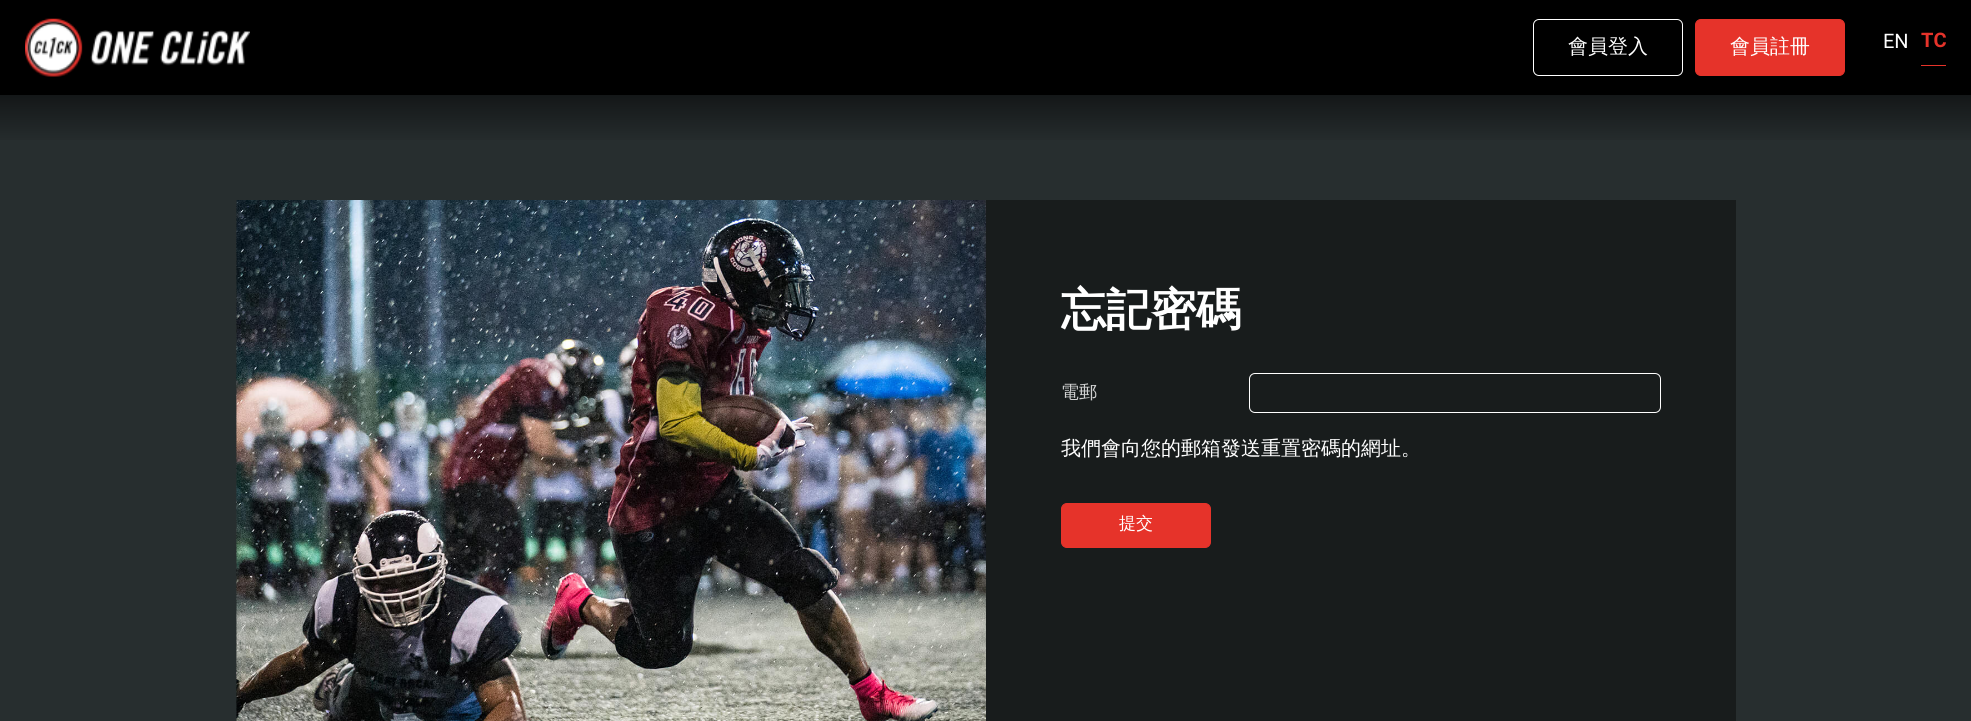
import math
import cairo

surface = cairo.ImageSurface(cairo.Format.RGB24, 1971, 721)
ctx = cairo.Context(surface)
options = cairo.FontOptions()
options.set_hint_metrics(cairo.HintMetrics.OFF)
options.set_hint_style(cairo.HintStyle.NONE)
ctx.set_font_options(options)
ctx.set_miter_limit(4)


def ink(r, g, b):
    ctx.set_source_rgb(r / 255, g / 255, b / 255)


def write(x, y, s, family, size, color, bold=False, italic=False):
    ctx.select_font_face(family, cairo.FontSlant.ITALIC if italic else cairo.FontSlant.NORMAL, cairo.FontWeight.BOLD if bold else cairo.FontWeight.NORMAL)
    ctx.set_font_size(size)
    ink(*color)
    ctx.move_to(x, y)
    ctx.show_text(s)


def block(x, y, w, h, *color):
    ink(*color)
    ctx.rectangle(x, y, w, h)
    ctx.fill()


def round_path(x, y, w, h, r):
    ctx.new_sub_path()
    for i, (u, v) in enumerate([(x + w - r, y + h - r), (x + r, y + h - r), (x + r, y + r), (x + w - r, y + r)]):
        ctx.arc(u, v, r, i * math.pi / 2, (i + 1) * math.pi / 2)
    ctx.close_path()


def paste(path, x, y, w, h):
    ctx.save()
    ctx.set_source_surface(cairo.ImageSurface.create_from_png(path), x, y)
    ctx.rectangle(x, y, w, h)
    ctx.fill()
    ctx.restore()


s1 = dict(family="WenQuanYi Zen Hei Medium", size=20, color=(255, 255, 255))
s2 = dict(family="Roboto", size=20, color=(255, 255, 255))
s3 = dict(family="Roboto", size=20, color=(230, 51, 42), bold=True)
s4 = dict(family="WenQuanYi Zen Hei", size=45, color=(255, 255, 255), bold=True)
s5 = dict(family="WenQuanYi Zen Hei Medium", size=18, color=(209, 210, 210))
s6 = dict(family="WenQuanYi Zen Hei Medium", size=17, color=(255, 255, 255))

ink(39, 46, 47)
ctx.paint()
block(0, 0, 1971, 95, 0, 0, 0)
paste("pic1.png", 25, 18, 225, 59)
round_path(1533.5, 19.5, 149, 56, 5.5)
ink(255, 255, 255)
ctx.set_line_width(1)
ctx.stroke()
write(1568, 53, "會員登入", **s1)
ink(230, 51, 42)
round_path(1695.5, 19.5, 149, 56, 5.5)
ctx.fill_preserve()
ctx.stroke()
write(1730, 53, "會員註冊", **s1)
write(1883, 48, "EN", **s2)
block(1921, 65, 25, 1, 230, 51, 42)
write(1921, 47, "TC", **s3)
gradient = cairo.LinearGradient(986, 145, 986, 95)
gradient.add_color_stop_rgba(0, 0.153, 0.18, 0.184, 1)
gradient.add_color_stop_rgba(1, 0.078, 0.09, 0.094, 1)
ctx.set_source(gradient)
ctx.rectangle(0, 95, 1971, 45)
ctx.fill()
paste("pic2.png", 236, 200, 750, 521)
block(986, 200, 750, 521, 24, 28, 28)
write(1061, 325, "忘記密碼", **s4)
write(1061, 398, "電郵", **s5)
round_path(1249.5, 373.5, 411, 39, 5.5)
ink(255, 255, 255)
ctx.stroke()
write(1061, 455, "我們會向您的郵箱發送重置密碼的網址。", **s1)
ink(230, 51, 42)
round_path(1061.5, 503.5, 149, 44, 5.5)
ctx.fill_preserve()
ctx.stroke()
write(1119, 529, "提交", **s6)
surface.write_to_png("screenshot.png")
